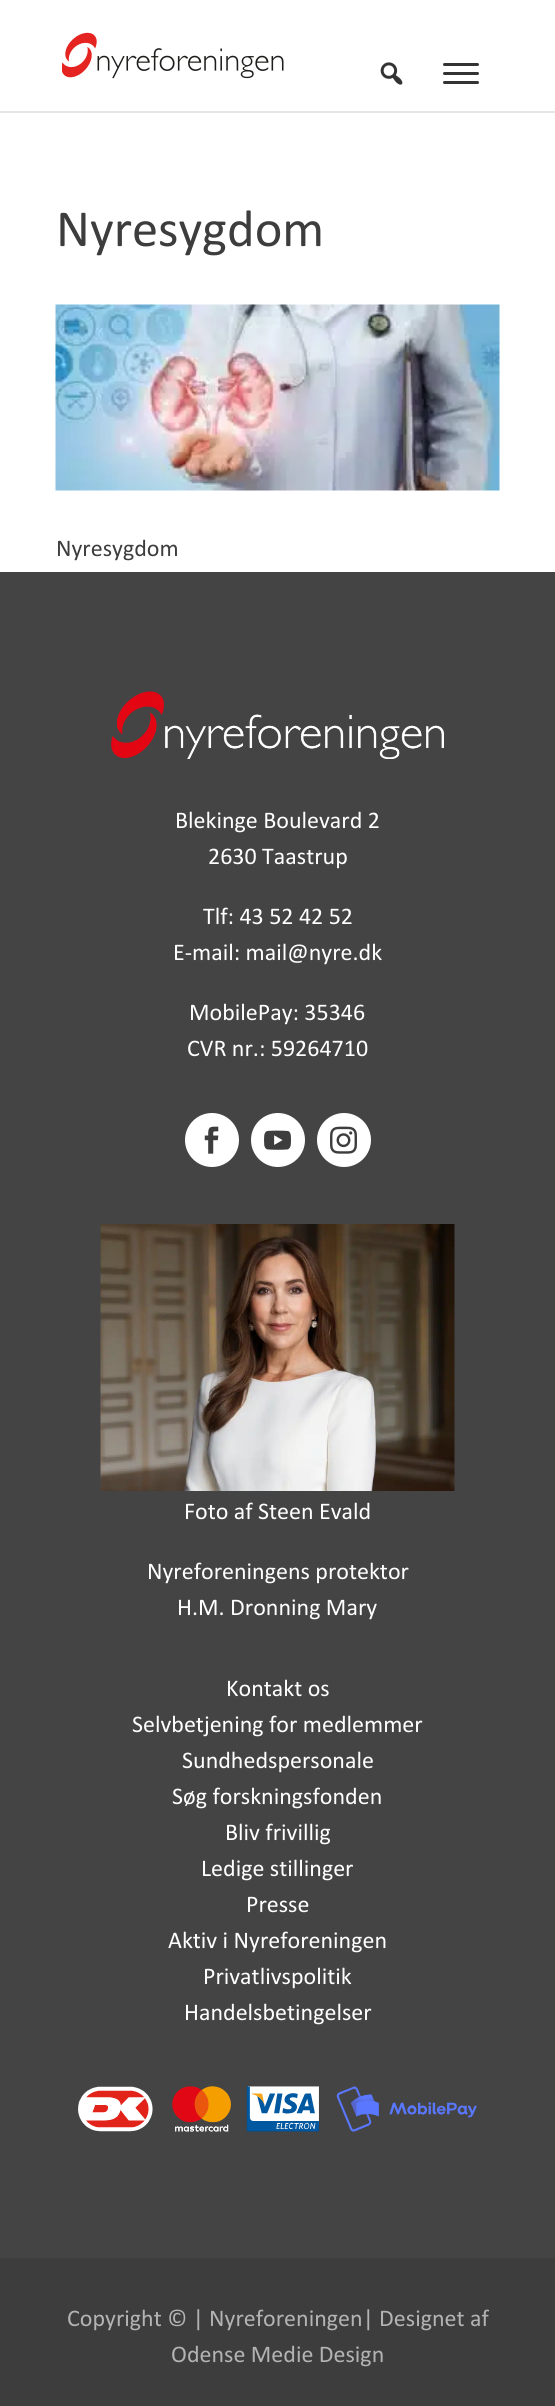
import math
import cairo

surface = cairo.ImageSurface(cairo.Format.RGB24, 555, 2406)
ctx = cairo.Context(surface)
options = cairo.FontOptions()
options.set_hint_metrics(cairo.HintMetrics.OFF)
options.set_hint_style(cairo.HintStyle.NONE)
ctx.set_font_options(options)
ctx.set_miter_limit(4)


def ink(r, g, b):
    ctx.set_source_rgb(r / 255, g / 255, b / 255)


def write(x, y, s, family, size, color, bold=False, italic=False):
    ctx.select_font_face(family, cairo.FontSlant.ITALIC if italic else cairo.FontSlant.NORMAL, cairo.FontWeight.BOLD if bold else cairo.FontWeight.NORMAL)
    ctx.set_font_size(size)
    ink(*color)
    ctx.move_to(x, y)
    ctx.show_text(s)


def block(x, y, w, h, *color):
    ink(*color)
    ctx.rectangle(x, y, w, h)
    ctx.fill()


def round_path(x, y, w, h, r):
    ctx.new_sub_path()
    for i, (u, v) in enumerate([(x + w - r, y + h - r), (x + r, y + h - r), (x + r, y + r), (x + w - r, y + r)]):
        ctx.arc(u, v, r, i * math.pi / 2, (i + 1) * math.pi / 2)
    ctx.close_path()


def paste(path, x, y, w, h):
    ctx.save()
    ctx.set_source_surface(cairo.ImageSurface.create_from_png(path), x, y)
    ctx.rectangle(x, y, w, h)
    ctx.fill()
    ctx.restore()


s1 = dict(family="Calibri", size=52.5, color=(61, 61, 61))
s2 = dict(family="Calibri", size=24, color=(61, 61, 61))
s3 = dict(family="Calibri", size=24, color=(255, 255, 255))
s4 = dict(family="Calibri", size=24, color=(179, 179, 179))

ink(255, 255, 255)
ctx.paint()
block(0, 111, 555, 2, 230, 230, 230)
paste("pic1.png", 62, 32, 222, 47)
paste("pic2.png", 380, 62, 23, 23)
ink(51, 51, 51)
round_path(443, 63, 36, 3, 1.5)
ctx.fill()
round_path(443, 72, 36, 3, 1.5)
ctx.fill()
round_path(443, 81, 36, 3, 1.5)
ctx.fill()
write(56, 246, "Nyresygdom", **s1)
paste("pic3.png", 55, 304, 445, 187)
write(56, 556, "Nyresygdom", **s2)
block(0, 572, 555, 1686, 68, 68, 68)
paste("pic4.png", 111, 691, 333, 68)
write(175, 828, "Blekinge Boulevard 2", **s3)
write(208, 864, "2630 Taastrup", **s3)
write(203, 924, "Tlf: 43 52 42 52", **s3)
write(173, 960, "E-mail: mail@nyre.dk", **s3)
write(189, 1020, "MobilePay: 35346", **s3)
write(187, 1056, "CVR nr.: 59264710", **s3)
ctx.new_path()
ctx.arc(212, 1140, 27, 0, 2 * math.pi)
ctx.fill()
paste("pic5.png", 204, 1126, 15, 28)
ctx.arc(278, 1140, 27, 0, 2 * math.pi)
ctx.fill()
paste("pic6.png", 264, 1130, 27, 20)
ctx.arc(344, 1140, 27, 0, 2 * math.pi)
ctx.fill()
paste("pic7.png", 330, 1126, 27, 28)
paste("pic8.png", 100, 1224, 355, 267)
write(184, 1519, "Foto af Steen Evald", **s3)
write(147, 1579, "Nyreforeningens protektor", **s3)
write(177, 1615, "H.M. Dronning Mary", **s3)
write(226, 1696, "Kontakt os", **s3)
write(132, 1732, "Selvbetjening for medlemmer", **s3)
write(182, 1768, "Sundhedspersonale", **s3)
write(172, 1804, "Søg forskningsfonden", **s3)
write(225, 1840, "Bliv frivillig", **s3)
write(201, 1876, "Ledige stillinger", **s3)
write(246, 1912, "Presse", **s3)
write(168, 1948, "Aktiv i Nyreforeningen", **s3)
write(203, 1984, "Privatlivspolitik", **s3)
write(184, 2020, "Handelsbetingelser", **s3)
paste("pic9.png", 78, 2086, 399, 46)
block(0, 2258, 555, 148, 61, 61, 61)
write(67, 2326, "Copyright © | Nyreforeningen| Designet af", **s4)
write(171, 2362, "Odense Medie Design", **s4)
surface.write_to_png("screenshot.png")
